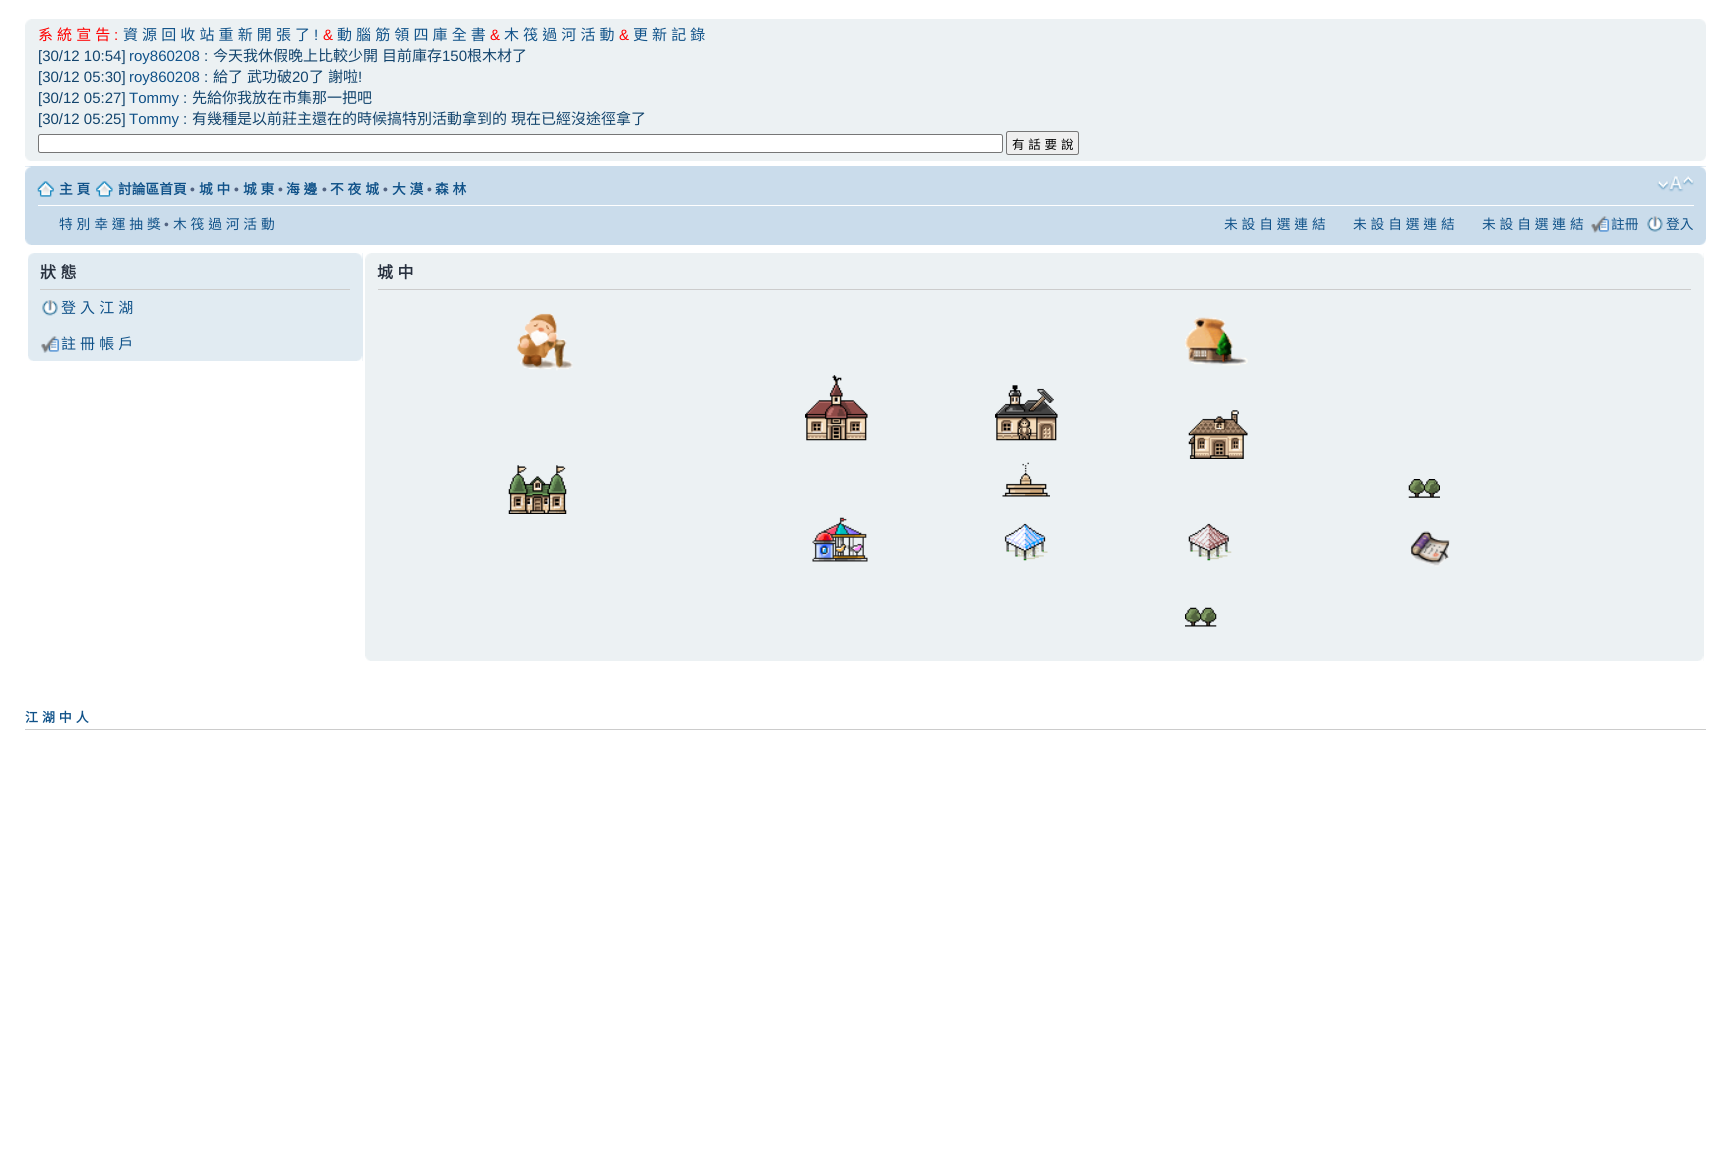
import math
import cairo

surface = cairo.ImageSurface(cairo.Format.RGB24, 1731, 1156)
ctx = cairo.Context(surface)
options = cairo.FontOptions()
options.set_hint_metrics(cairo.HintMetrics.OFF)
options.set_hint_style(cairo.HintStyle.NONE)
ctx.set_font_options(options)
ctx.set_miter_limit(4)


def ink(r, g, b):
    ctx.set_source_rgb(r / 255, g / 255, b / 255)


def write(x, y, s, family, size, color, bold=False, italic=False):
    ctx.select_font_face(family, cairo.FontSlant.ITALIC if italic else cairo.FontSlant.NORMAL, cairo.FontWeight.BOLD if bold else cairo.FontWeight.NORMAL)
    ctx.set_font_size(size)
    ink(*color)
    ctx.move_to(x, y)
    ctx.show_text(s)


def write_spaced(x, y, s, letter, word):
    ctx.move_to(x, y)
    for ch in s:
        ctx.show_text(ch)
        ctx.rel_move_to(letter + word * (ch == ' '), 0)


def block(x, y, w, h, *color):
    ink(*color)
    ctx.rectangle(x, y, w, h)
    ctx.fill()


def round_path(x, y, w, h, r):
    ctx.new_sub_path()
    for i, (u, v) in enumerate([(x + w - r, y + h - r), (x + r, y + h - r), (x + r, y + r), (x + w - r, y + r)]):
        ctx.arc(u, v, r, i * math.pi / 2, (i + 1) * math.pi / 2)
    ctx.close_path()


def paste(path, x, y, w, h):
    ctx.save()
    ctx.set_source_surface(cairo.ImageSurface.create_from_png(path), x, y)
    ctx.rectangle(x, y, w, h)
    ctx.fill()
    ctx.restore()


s1 = dict(family="Liberation Sans", size=15, color=(255, 0, 0))
s2 = dict(family="Liberation Sans", size=15, color=(16, 82, 137))
s3 = dict(family="Liberation Sans", size=15, color=(18, 68, 109))
s4 = dict(family="Noto Sans CJK TC", size=15, color=(18, 68, 109))
s5 = dict(family="Noto Sans CJK TC", size=13.75, color=(16, 82, 137), bold=True)
s6 = dict(family="Liberation Sans", size=13.75, color=(83, 100, 130), bold=True)
s7 = dict(family="Liberation Sans", size=13.75, color=(83, 100, 130))
s8 = dict(family="Noto Sans CJK TC", size=13.75, color=(16, 82, 137))

ink(255, 255, 255)
ctx.paint()
block(25, 19, 1681, 142, 236, 241, 243)
paste("pic1.png", 25, 19, 6, 6)
paste("pic2.png", 1700, 19, 6, 6)
ctx.select_font_face("Noto Sans CJK TC")
ctx.set_font_size(15)
ink(255, 0, 0)
write_spaced(38, 40, "系 統 宣 告", 0, 0.75)
write(114, 40, ":", **s1)
ctx.select_font_face("Noto Sans CJK TC")
ink(16, 82, 137)
write_spaced(123, 40, "資 源 回 收 站 重 新 開 張 了", 0, 0.75)
write(314, 40, "!", **s2)
write(323, 40, "&", **s1)
ctx.select_font_face("Noto Sans CJK TC")
ink(16, 82, 137)
write_spaced(337, 40, "動 腦 筋 領 四 庫 全 書", 0, 0.75)
write(490, 40, "&", **s1)
ctx.select_font_face("Noto Sans CJK TC")
ink(16, 82, 137)
write_spaced(504, 40, "木 筏 過 河 活 動", 0, 0.75)
write(619, 40, "&", **s1)
ctx.select_font_face("Noto Sans CJK TC")
ink(16, 82, 137)
write_spaced(633, 40, "更 新 記 錄", 0, 0.75)
write(38, 61, "[30/12 10:54]", **s3)
write(129, 61, "roy860208", **s2)
write(204, 61, ":", **s3)
ctx.select_font_face("Noto Sans CJK TC")
write_spaced(213, 61, "今天我休假晚上比較少開 目前庫存", 0, 0.75)
write(442, 61, "150", **s3)
write(467, 61, "根木材了", **s4)
write(38, 82, "[30/12 05:30]", **s3)
write(129, 82, "roy860208", **s2)
write(204, 82, ":", **s3)
ctx.select_font_face("Noto Sans CJK TC")
write_spaced(213, 82, "給了 武功破", 0, 0.75)
write(292, 82, "20", **s3)
ctx.select_font_face("Noto Sans CJK TC")
write_spaced(309, 82, "了 謝啦", 0, 0.75)
write(358, 82, "!", **s3)
write(38, 103, "[30/12 05:27]", **s3)
write(129, 103, "Tommy", **s2)
write(183, 103, ":", **s3)
write(192, 103, "先給你我放在市集那一把吧", **s4)
write(38, 124, "[30/12 05:25]", **s3)
write(129, 124, "Tommy", **s2)
write(183, 124, ":", **s3)
ctx.select_font_face("Noto Sans CJK TC")
write_spaced(192, 124, "有幾種是以前莊主還在的時候搞特別活動拿到的 現在已經沒途徑拿了", 0, 0.75)
ink(255, 255, 255)
round_path(38.5, 134.5, 964, 18, 2)
ctx.fill_preserve()
ink(118, 118, 118)
ctx.set_line_width(1)
ctx.stroke()
ink(239, 239, 239)
round_path(1006.5, 131.5, 72, 23, 2)
ctx.fill_preserve()
ink(118, 118, 118)
ctx.stroke()
ctx.set_font_size(12.5)
ink(0, 0, 0)
write_spaced(1012, 149, "有 話 要 說", 0, 1)
paste("pic3.png", 25, 156, 5, 5)
paste("pic4.png", 1701, 156, 5, 5)
block(25, 166, 1681, 79, 202, 220, 235)
paste("pic5.png", 25, 166, 6, 7)
paste("pic6.png", 1700, 166, 6, 7)
block(38, 205, 1656, 1, 255, 255, 255)
paste("pic7.png", 37, 181, 17, 16)
ctx.select_font_face("Noto Sans CJK TC", cairo.FontSlant.NORMAL, cairo.FontWeight.BOLD)
ctx.set_font_size(13.75)
ink(16, 82, 137)
write_spaced(59, 194, "主 頁", 0, 0.75)
paste("pic8.png", 96, 181, 17, 16)
write(118, 194, "討論區首頁", **s5)
write(190, 194, "•", **s6)
ctx.select_font_face("Noto Sans CJK TC", cairo.FontSlant.NORMAL, cairo.FontWeight.BOLD)
ink(16, 82, 137)
write_spaced(199, 194, "城 中", 0, 0.75)
write(234, 194, "•", **s6)
ctx.select_font_face("Noto Sans CJK TC", cairo.FontSlant.NORMAL, cairo.FontWeight.BOLD)
ink(16, 82, 137)
write_spaced(243, 194, "城 東", 0, 0.75)
write(278, 194, "•", **s6)
ctx.select_font_face("Noto Sans CJK TC", cairo.FontSlant.NORMAL, cairo.FontWeight.BOLD)
ink(16, 82, 137)
write_spaced(286, 194, "海 邊", 0, 0.75)
write(322, 194, "•", **s6)
ctx.select_font_face("Noto Sans CJK TC", cairo.FontSlant.NORMAL, cairo.FontWeight.BOLD)
ink(16, 82, 137)
write_spaced(330, 194, "不 夜 城", 0, 0.75)
write(383, 194, "•", **s6)
ctx.select_font_face("Noto Sans CJK TC", cairo.FontSlant.NORMAL, cairo.FontWeight.BOLD)
ink(16, 82, 137)
write_spaced(392, 194, "大 漠", 0, 0.75)
write(427, 194, "•", **s6)
ctx.select_font_face("Noto Sans CJK TC", cairo.FontSlant.NORMAL, cairo.FontWeight.BOLD)
ink(16, 82, 137)
write_spaced(435, 194, "森 林", 0, 0.75)
paste("pic9.png", 1657, 176, 37, 16)
ctx.select_font_face("Noto Sans CJK TC")
write_spaced(59, 229, "特 別 幸 運 抽 獎", 0, 0.75)
write(164, 229, "•", **s7)
ctx.select_font_face("Noto Sans CJK TC")
ink(16, 82, 137)
write_spaced(173, 229, "木 筏 過 河 活 動", 0, 0.75)
write_spaced(1224, 229, "未 設 自 選 連 結", 0, 0.75)
write_spaced(1353, 229, "未 設 自 選 連 結", 0, 0.75)
write_spaced(1482, 229, "未 設 自 選 連 結", 0, 0.75)
paste("pic10.png", 1591, 216, 18, 17)
write(1611, 229, "註冊", **s8)
paste("pic11.png", 1647, 216, 16, 16)
write(1666, 229, "登入", **s8)
paste("pic12.png", 25, 239, 6, 6)
paste("pic13.png", 1700, 239, 6, 6)
block(28, 253, 335, 108, 225, 235, 242)
paste("pic14.png", 28, 253, 6, 6)
paste("pic15.png", 356, 253, 7, 6)
ctx.select_font_face("Noto Sans CJK TC", cairo.FontSlant.NORMAL, cairo.FontWeight.BOLD)
ctx.set_font_size(16)
ink(40, 49, 63)
write_spaced(40, 278, "狀 態", 0, 1)
block(40, 289, 310, 1, 204, 204, 204)
paste("pic16.png", 42, 300, 16, 16)
ctx.select_font_face("Noto Sans CJK TC")
ctx.set_font_size(15)
ink(16, 82, 137)
write_spaced(61, 313, "登 入 江 湖", 0, 0.75)
paste("pic17.png", 41, 336, 18, 17)
write_spaced(61, 349, "註 冊 帳 戶", 0, 0.75)
paste("pic18.png", 28, 356, 5, 5)
paste("pic19.png", 357, 356, 6, 5)
block(365, 253, 1339, 408, 236, 241, 243)
paste("pic20.png", 365, 253, 6, 6)
paste("pic21.png", 1698, 253, 6, 5)
ctx.select_font_face("Noto Sans CJK TC", cairo.FontSlant.NORMAL, cairo.FontWeight.BOLD)
ctx.set_font_size(16)
ink(40, 49, 63)
write_spaced(377, 278, "城 中", 0, 1)
block(378, 289, 1313, 1, 204, 204, 204)
paste("pic22.png", 517, 313, 56, 58)
paste("pic23.png", 1185, 317, 63, 49)
paste("pic24.png", 805, 375, 63, 66)
paste("pic25.png", 995, 385, 63, 56)
paste("pic26.png", 1188, 410, 60, 49)
paste("pic27.png", 508, 465, 59, 49)
paste("pic28.png", 1002, 462, 48, 35)
paste("pic29.png", 1408, 479, 32, 19)
paste("pic30.png", 812, 517, 56, 45)
paste("pic31.png", 1004, 523, 44, 38)
paste("pic32.png", 1188, 523, 44, 38)
paste("pic33.png", 1410, 531, 40, 36)
paste("pic34.png", 1185, 607, 32, 20)
paste("pic35.png", 365, 656, 5, 5)
paste("pic36.png", 1698, 656, 6, 5)
block(25, 729, 1681, 1, 204, 204, 204)
ctx.set_font_size(13)
ink(16, 82, 137)
write_spaced(25, 722, "江 湖 中 人", 0, 1)
surface.write_to_png("screenshot.png")
